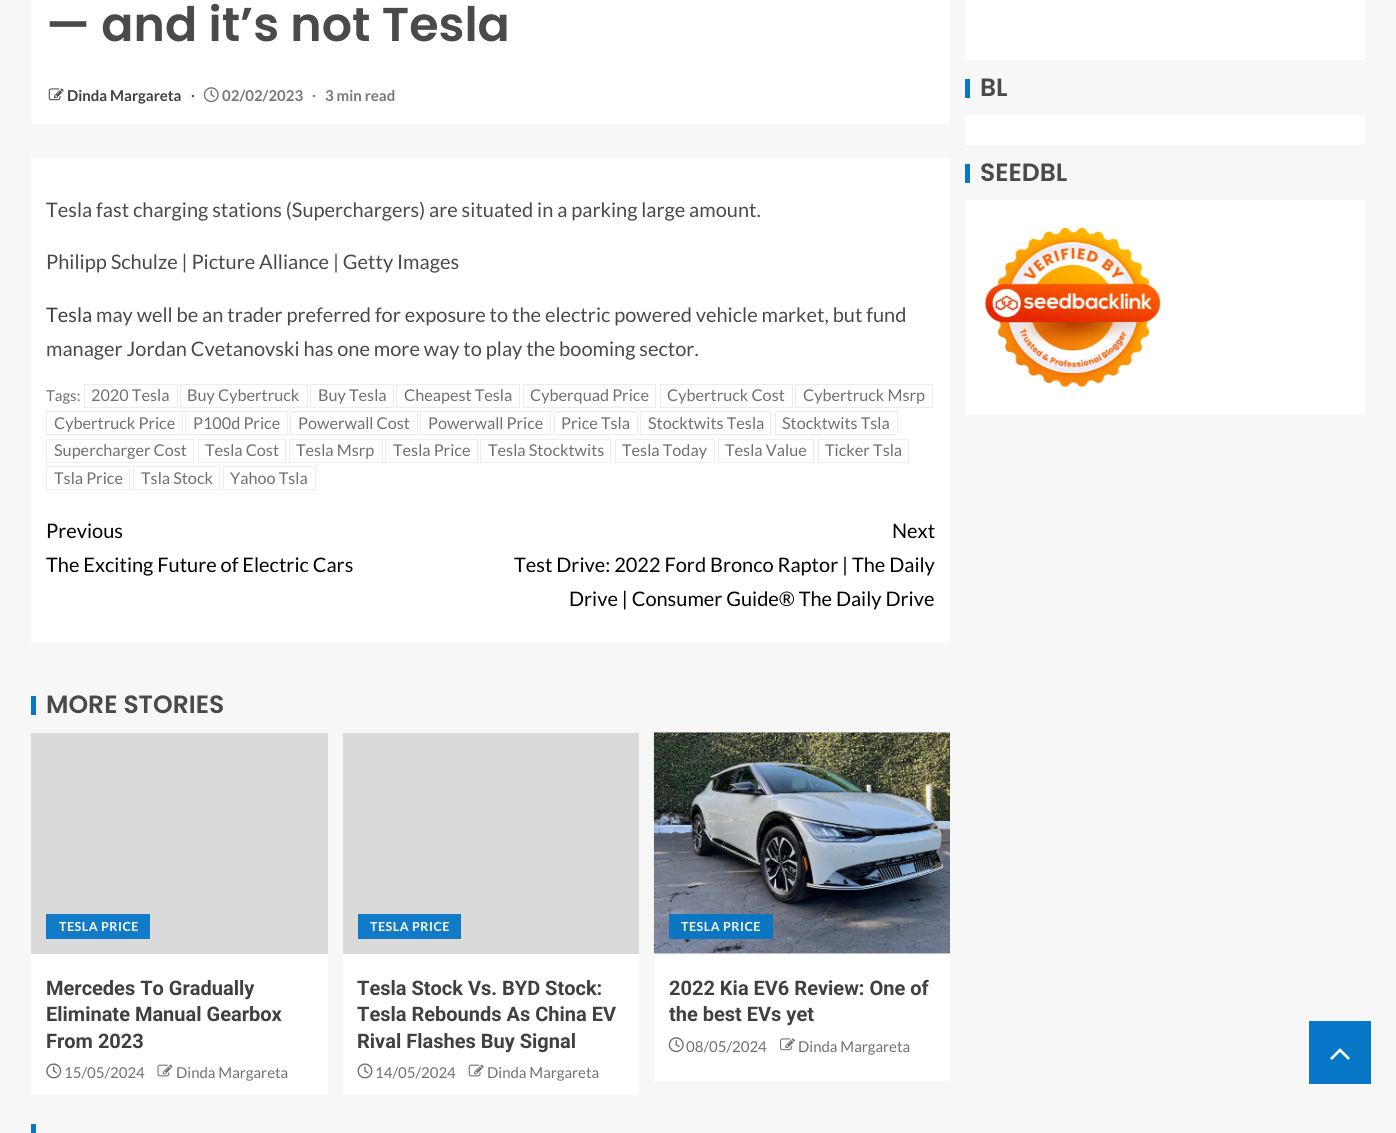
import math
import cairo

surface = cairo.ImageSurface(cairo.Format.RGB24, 1396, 1133)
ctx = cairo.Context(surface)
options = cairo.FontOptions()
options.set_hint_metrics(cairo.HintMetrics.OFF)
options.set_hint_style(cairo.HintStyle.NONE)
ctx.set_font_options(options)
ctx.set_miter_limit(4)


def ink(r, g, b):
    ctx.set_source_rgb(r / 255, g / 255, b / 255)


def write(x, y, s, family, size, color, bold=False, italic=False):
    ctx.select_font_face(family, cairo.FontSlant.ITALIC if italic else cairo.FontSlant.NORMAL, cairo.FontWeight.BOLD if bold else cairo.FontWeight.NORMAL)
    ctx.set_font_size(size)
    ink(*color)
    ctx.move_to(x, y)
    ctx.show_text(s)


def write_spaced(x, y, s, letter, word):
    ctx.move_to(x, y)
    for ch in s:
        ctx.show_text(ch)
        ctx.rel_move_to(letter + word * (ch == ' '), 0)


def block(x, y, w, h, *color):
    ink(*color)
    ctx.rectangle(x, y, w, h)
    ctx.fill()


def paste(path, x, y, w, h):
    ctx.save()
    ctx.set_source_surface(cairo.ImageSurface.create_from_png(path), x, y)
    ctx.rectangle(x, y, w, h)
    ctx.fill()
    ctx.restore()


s1 = dict(family="Poppins SemiBold", size=47.5, color=(74, 74, 74))
s2 = dict(family="Lato", size=15, color=(64, 64, 64), bold=True)
s3 = dict(family="Liberation Serif", size=15, color=(74, 74, 74), bold=True)
s4 = dict(family="Lato", size=15, color=(119, 119, 119), bold=True)
s5 = dict(family="Liberation Serif", size=15, color=(119, 119, 119), bold=True)
s6 = dict(family="Lato", size=20, color=(74, 74, 74))
s7 = dict(family="Lato", size=20, color=(64, 64, 64))
s8 = dict(family="Lato", size=15, color=(112, 112, 112))
s9 = dict(family="Lato", size=16.25, color=(112, 112, 112))
s10 = dict(family="Lato", size=20, color=(0, 0, 0))
s11 = dict(family="Poppins SemiBold", size=25, color=(74, 74, 74))
s12 = dict(family="Roboto", size=20, color=(64, 64, 64), bold=True)

ink(247, 247, 247)
ctx.paint()
block(31, 0, 919, 124, 255, 255, 255)
write(46, 41, "— and it’s not Tesla", **s1)
paste("pic1.png", 48, 88, 16, 13)
write(67, 101, "Dinda Margareta", **s2)
write(191, 101, "∙", **s3)
paste("pic2.png", 203, 87, 16, 16)
write(222, 101, "02/02/2023", **s4)
write(312, 101, "∙", **s5)
write(325, 101, "3 min read", **s4)
block(31, 158, 919, 485, 255, 255, 255)
write(46, 217, "Tesla fast charging stations (Superchargers) are situated in a parking large amount.", **s6)
write(46, 269, "Philipp Schulze | Picture Alliance | Getty Images", **s6)
write(46, 322, "Tesla", **s7)
write(96, 322, "may well be an trader preferred for exposure to the electric powered vehicle market, but fund", **s6)
write(46, 356, "manager Jordan Cvetanovski has one more way to play the booming sector.", **s6)
write(46, 401, "Tags:", **s8)
ctx.rectangle(84.5, 384.5, 93, 23)
ink(236, 236, 236)
ctx.set_line_width(1)
ctx.stroke()
write(91, 401, "2020 Tesla", **s9)
ctx.rectangle(180.5, 384.5, 127, 23)
ink(236, 236, 236)
ctx.stroke()
write(187, 401, "Buy Cybertruck", **s9)
ctx.rectangle(310.5, 384.5, 83, 23)
ink(236, 236, 236)
ctx.stroke()
write(318, 401, "Buy Tesla", **s9)
ctx.rectangle(396.5, 384.5, 123, 23)
ink(236, 236, 236)
ctx.stroke()
write(404, 401, "Cheapest Tesla", **s9)
ctx.rectangle(523.5, 384.5, 132, 23)
ink(236, 236, 236)
ctx.stroke()
write(530, 401, "Cyberquad Price", **s9)
ctx.rectangle(660.5, 384.5, 132, 23)
ink(236, 236, 236)
ctx.stroke()
write(667, 401, "Cybertruck Cost", **s9)
ctx.rectangle(795.5, 384.5, 137, 23)
ink(236, 236, 236)
ctx.stroke()
write(803, 401, "Cybertruck Msrp", **s9)
ctx.rectangle(46.5, 411.5, 136, 23)
ink(236, 236, 236)
ctx.stroke()
write(54, 429, "Cybertruck Price", **s9)
ctx.rectangle(185.5, 411.5, 102, 23)
ink(236, 236, 236)
ctx.stroke()
write(193, 429, "P100d Price", **s9)
ctx.rectangle(290.5, 411.5, 127, 23)
ink(236, 236, 236)
ctx.stroke()
write(298, 429, "Powerwall Cost", **s9)
ctx.rectangle(420.5, 411.5, 130, 23)
ink(236, 236, 236)
ctx.stroke()
write(428, 429, "Powerwall Price", **s9)
ctx.rectangle(554.5, 411.5, 83, 23)
ink(236, 236, 236)
ctx.stroke()
write(561, 429, "Price Tsla", **s9)
ctx.rectangle(640.5, 411.5, 130, 23)
ink(236, 236, 236)
ctx.stroke()
write(648, 429, "Stocktwits Tesla", **s9)
ctx.rectangle(775.5, 411.5, 122, 23)
ink(236, 236, 236)
ctx.stroke()
write(782, 429, "Stocktwits Tsla", **s9)
ctx.rectangle(46.5, 439.5, 147, 23)
ink(236, 236, 236)
ctx.stroke()
write(54, 456, "Supercharger Cost", **s9)
ctx.rectangle(198.5, 439.5, 87, 23)
ink(236, 236, 236)
ctx.stroke()
write(205, 456, "Tesla Cost", **s9)
ctx.rectangle(289.5, 439.5, 93, 23)
ink(236, 236, 236)
ctx.stroke()
write(296, 456, "Tesla Msrp", **s9)
ctx.rectangle(385.5, 439.5, 92, 23)
ink(236, 236, 236)
ctx.stroke()
write(393, 456, "Tesla Price", **s9)
ctx.rectangle(480.5, 439.5, 130, 23)
ink(236, 236, 236)
ctx.stroke()
write(488, 456, "Tesla Stocktwits", **s9)
ctx.rectangle(615.5, 439.5, 99, 23)
ink(236, 236, 236)
ctx.stroke()
write(622, 456, "Tesla Today", **s9)
ctx.rectangle(718.5, 439.5, 95, 23)
ink(236, 236, 236)
ctx.stroke()
write(725, 456, "Tesla Value", **s9)
ctx.rectangle(818.5, 439.5, 90, 23)
ink(236, 236, 236)
ctx.stroke()
write(825, 456, "Ticker Tsla", **s9)
ctx.rectangle(46.5, 466.5, 83, 23)
ink(236, 236, 236)
ctx.stroke()
write(54, 484, "Tsla Price", **s9)
ctx.rectangle(133.5, 466.5, 86, 23)
ink(236, 236, 236)
ctx.stroke()
write(141, 484, "Tsla Stock", **s9)
ctx.rectangle(223.5, 466.5, 92, 23)
ink(236, 236, 236)
ctx.stroke()
write(230, 484, "Yahoo Tsla", **s9)
write(46, 538, "Previous", **s10)
write(46, 572, "The Exciting Future of Electric Cars", **s10)
write(892, 538, "Next", **s10)
write(514, 572, "Test Drive: 2022 Ford Bronco Raptor | The Daily", **s10)
write(569, 606, "Drive | Consumer Guide® The Daily Drive", **s10)
block(31, 696, 5, 19, 7, 118, 198)
write(46, 713, "MORE STORIES", **s11)
block(31, 733, 297, 221, 218, 218, 218)
block(46, 914, 104, 25, 18, 123, 199)
ctx.select_font_face("Lato", cairo.FontSlant.NORMAL, cairo.FontWeight.BOLD)
ctx.set_font_size(12.5)
ink(253, 253, 253)
write_spaced(59, 931, "TESLA PRICE", 0.5, 0)
block(31, 954, 297, 141, 255, 255, 255)
write(46, 995, "Mercedes To Gradually", **s12)
write(46, 1021, "Eliminate Manual Gearbox", **s12)
write(46, 1048, "From 2023", **s12)
paste("pic3.png", 46, 1063, 16, 16)
write(64, 1078, "15/05/2024", **s8)
paste("pic4.png", 157, 1064, 16, 13)
write(176, 1078, "Dinda Margareta", **s8)
block(343, 733, 296, 221, 218, 218, 218)
block(358, 914, 103, 25, 18, 123, 199)
ctx.select_font_face("Lato", cairo.FontSlant.NORMAL, cairo.FontWeight.BOLD)
ctx.set_font_size(12.5)
ink(253, 253, 253)
write_spaced(370, 931, "TESLA PRICE", 0.5, 0)
block(343, 954, 296, 141, 255, 255, 255)
write(357, 995, "Tesla Stock Vs. BYD Stock:", **s12)
write(357, 1021, "Tesla Rebounds As China EV", **s12)
write(357, 1048, "Rival Flashes Buy Signal", **s12)
paste("pic5.png", 357, 1063, 16, 16)
write(375, 1078, "14/05/2024", **s8)
paste("pic6.png", 468, 1064, 16, 13)
write(487, 1078, "Dinda Margareta", **s8)
block(654, 953, 296, 1, 218, 218, 218)
paste("pic7.png", 653, 732, 297, 222)
ctx.set_source_rgba(0.027, 0.463, 0.776, 0.95)
ctx.rectangle(669, 914, 104, 25)
ctx.fill()
ctx.select_font_face("Lato", cairo.FontSlant.NORMAL, cairo.FontWeight.BOLD)
ctx.set_font_size(12.5)
ink(243, 248, 252)
write_spaced(681, 931, "TESLA PRICE", 0.5, 0)
block(654, 954, 296, 127, 255, 255, 255)
write(669, 995, "2022 Kia EV6 Review: One of", **s12)
write(669, 1021, "the best EVs yet", **s12)
paste("pic8.png", 668, 1037, 16, 16)
write(686, 1052, "08/05/2024", **s8)
paste("pic9.png", 780, 1038, 15, 13)
write(798, 1052, "Dinda Margareta", **s8)
block(965, 0, 400, 60, 255, 255, 255)
block(965, 79, 5, 19, 7, 118, 198)
write(980, 96, "BL", **s11)
block(965, 115, 400, 30, 255, 255, 255)
block(965, 164, 5, 19, 7, 118, 198)
write(980, 181, "SEEDBL", **s11)
block(965, 200, 400, 215, 255, 255, 255)
paste("pic10.png", 984, 227, 177, 160)
block(31, 1124, 5, 9, 7, 118, 198)
block(1309, 1021, 62, 63, 7, 118, 198)
paste("pic11.png", 1330, 1048, 20, 12)
surface.write_to_png("screenshot.png")
